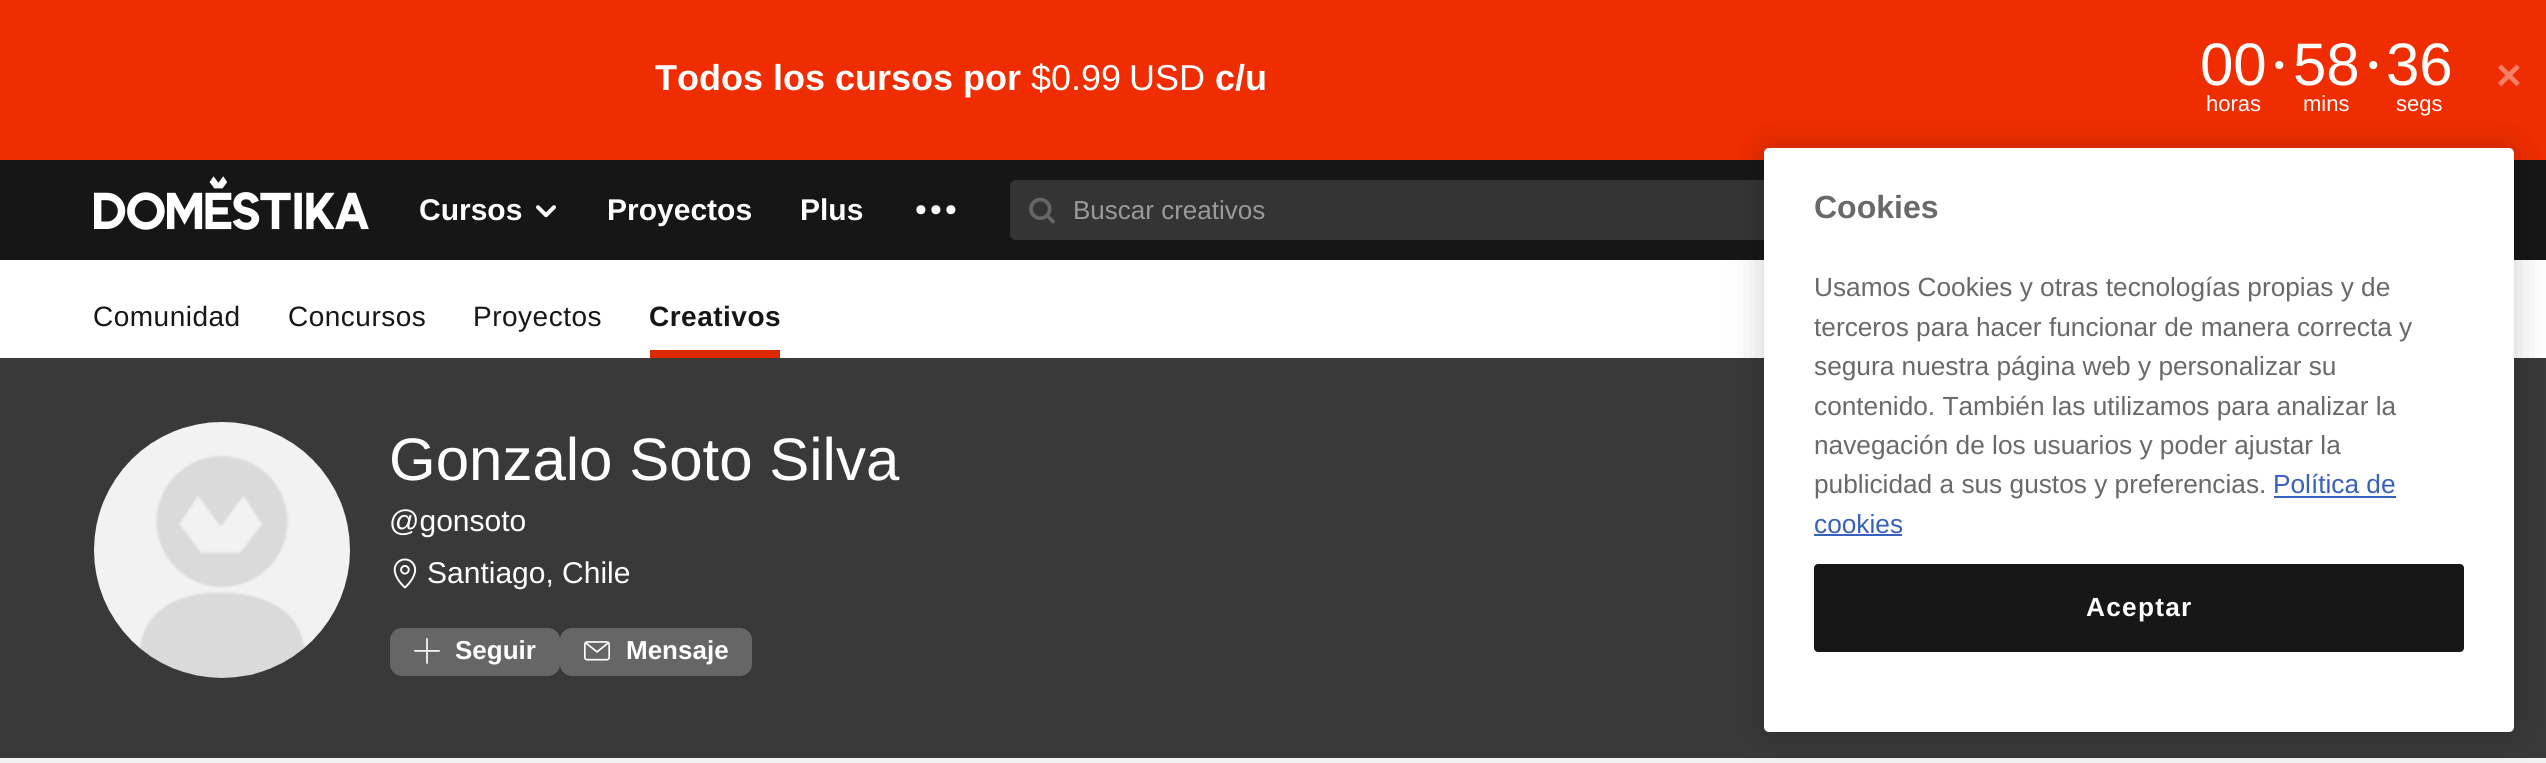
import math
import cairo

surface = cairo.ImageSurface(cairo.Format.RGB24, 2546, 763)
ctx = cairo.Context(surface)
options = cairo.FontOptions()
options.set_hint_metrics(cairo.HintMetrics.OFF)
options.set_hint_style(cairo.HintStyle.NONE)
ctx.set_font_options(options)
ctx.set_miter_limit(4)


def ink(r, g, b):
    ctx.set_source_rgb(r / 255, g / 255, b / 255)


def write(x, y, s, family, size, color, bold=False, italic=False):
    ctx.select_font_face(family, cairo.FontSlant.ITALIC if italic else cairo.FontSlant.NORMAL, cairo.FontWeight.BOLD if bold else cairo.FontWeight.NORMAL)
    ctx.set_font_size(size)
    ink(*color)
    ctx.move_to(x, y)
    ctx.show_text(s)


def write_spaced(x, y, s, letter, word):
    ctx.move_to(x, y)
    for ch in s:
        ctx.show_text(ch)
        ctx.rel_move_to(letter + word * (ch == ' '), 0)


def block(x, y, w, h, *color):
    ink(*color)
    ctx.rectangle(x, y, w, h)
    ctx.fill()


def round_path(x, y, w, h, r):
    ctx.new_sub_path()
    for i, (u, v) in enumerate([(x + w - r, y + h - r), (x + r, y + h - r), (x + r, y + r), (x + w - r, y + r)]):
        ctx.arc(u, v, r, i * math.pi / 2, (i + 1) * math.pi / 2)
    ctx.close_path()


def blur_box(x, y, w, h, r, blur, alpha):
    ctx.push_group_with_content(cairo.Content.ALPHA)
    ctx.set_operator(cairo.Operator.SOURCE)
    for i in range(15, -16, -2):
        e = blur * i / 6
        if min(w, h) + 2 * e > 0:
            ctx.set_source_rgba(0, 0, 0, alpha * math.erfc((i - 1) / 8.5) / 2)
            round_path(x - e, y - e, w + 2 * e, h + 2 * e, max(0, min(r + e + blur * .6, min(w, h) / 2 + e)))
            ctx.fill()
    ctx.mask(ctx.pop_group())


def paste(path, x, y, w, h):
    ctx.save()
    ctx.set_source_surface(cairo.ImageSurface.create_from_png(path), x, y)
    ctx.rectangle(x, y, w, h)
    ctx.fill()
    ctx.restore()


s1 = dict(family="Liberation Sans", size=36, color=(255, 255, 255), bold=True)
s2 = dict(family="Liberation Sans", size=36, color=(255, 255, 255))
s3 = dict(family="Liberation Sans", size=60, color=(255, 255, 255))
s4 = dict(family="Liberation Sans", size=22, color=(255, 255, 255))
s5 = dict(family="Liberation Sans", size=30, color=(255, 255, 255))
s6 = dict(family="Liberation Sans", size=44, color=(246, 129, 102), bold=True)
s7 = dict(family="Liberation Sans", size=30, color=(255, 255, 255), bold=True)
s8 = dict(family="Liberation Sans", size=26, color=(154, 154, 154))
s9 = dict(family="Liberation Sans", size=26, color=(255, 255, 255), bold=True)
s10 = dict(family="Liberation Sans", size=32, color=(105, 105, 105), bold=True)
s11 = dict(family="Liberation Sans", size=26.25, color=(105, 105, 105))
s12 = dict(family="Liberation Sans", size=26.25, color=(56, 96, 190))

ink(242, 242, 242)
ctx.paint()
block(0, 0, 2546, 160, 240, 45, 0)
write(655, 90, "Todos los cursos por", **s1)
write(1031, 90, "$0.99", **s2)
write(1129, 90, "USD", **s2)
write(1215, 90, "c/u", **s1)
write(2200, 85, "00", **s3)
write(2206, 111, "horas", **s4)
write(2274, 75, "•", **s5)
write(2293, 85, "58", **s3)
write(2303, 111, "mins", **s4)
write(2368, 75, "•", **s5)
write(2386, 85, "36", **s3)
write(2396, 111, "segs", **s4)
write(2496, 90, "×", **s6)
block(0, 160, 2546, 100, 22, 22, 22)
paste("pic1.png", 94, 176, 275, 54)
write(419, 220, "Cursos", **s7)
paste("pic2.png", 536, 205, 20, 13)
write(607, 220, "Proyectos", **s7)
write(800, 220, "Plus", **s7)
paste("pic3.png", 916, 205, 40, 10)
ink(52, 52, 52)
round_path(1010, 180, 958, 60, 6)
ctx.fill()
paste("pic4.png", 1029, 197, 26, 27)
write(1073, 219, "Buscar creativos", **s8)
block(0, 260, 2546, 98, 255, 255, 255)
ctx.set_font_size(28)
ink(22, 22, 22)
write_spaced(93, 326, "Comunidad", 0.5, 0)
write_spaced(288, 326, "Concursos", 0.5, 0)
write_spaced(473, 326, "Proyectos", 0.5, 0)
block(650, 350, 130, 8, 222, 41, 0)
ctx.select_font_face("Liberation Sans", cairo.FontSlant.NORMAL, cairo.FontWeight.BOLD)
ink(22, 22, 22)
write_spaced(649, 326, "Creativos", 0.5, 0)
block(0, 358, 2546, 400, 57, 57, 57)
paste("pic5.png", 94, 422, 256, 256)
write(389, 480, "Gonzalo Soto Silva", **s3)
write(389, 531, "@gonsoto", **s5)
paste("pic6.png", 393, 558, 24, 31)
write(427, 583, "Santiago, Chile", **s5)
ink(102, 102, 102)
round_path(390, 628, 170, 48, 12)
ctx.fill()
paste("pic7.png", 414, 638, 26, 26)
write(455, 659, "Seguir", **s9)
ink(102, 102, 102)
round_path(560, 628, 192, 48, 12)
ctx.fill()
paste("pic8.png", 584, 641, 26, 20)
write(626, 659, "Mensaje", **s9)
ink(0, 0, 0)
blur_box(1764, 148, 750, 584, 5, 18, 0.2)
ink(255, 255, 255)
round_path(1764, 148, 750, 584, 5)
ctx.fill()
write(1814, 218, "Cookies", **s10)
write(1814, 296, "Usamos Cookies y otras tecnologías propias y de", **s11)
write(1814, 336, "terceros para hacer funcionar de manera correcta y", **s11)
write(1814, 375, "segura nuestra página web y personalizar su", **s11)
write(1814, 415, "contenido. También las utilizamos para analizar la", **s11)
write(1814, 454, "navegación de los usuarios y poder ajustar la", **s11)
write(1814, 493, "publicidad a sus gustos y preferencias.", **s11)
write(2273, 493, "Política de", **s12)
block(2274, 496, 122, 2, 56, 96, 190)
write(1814, 533, "cookies", **s12)
block(1814, 534, 88, 2, 56, 96, 190)
ink(23, 23, 23)
round_path(1815, 565, 648, 86, 3)
ctx.fill_preserve()
ctx.stroke()
ctx.select_font_face("Liberation Sans", cairo.FontSlant.NORMAL, cairo.FontWeight.BOLD)
ink(255, 255, 255)
write_spaced(2086, 616, "Aceptar", 1.25, 0)
surface.write_to_png("screenshot.png")
